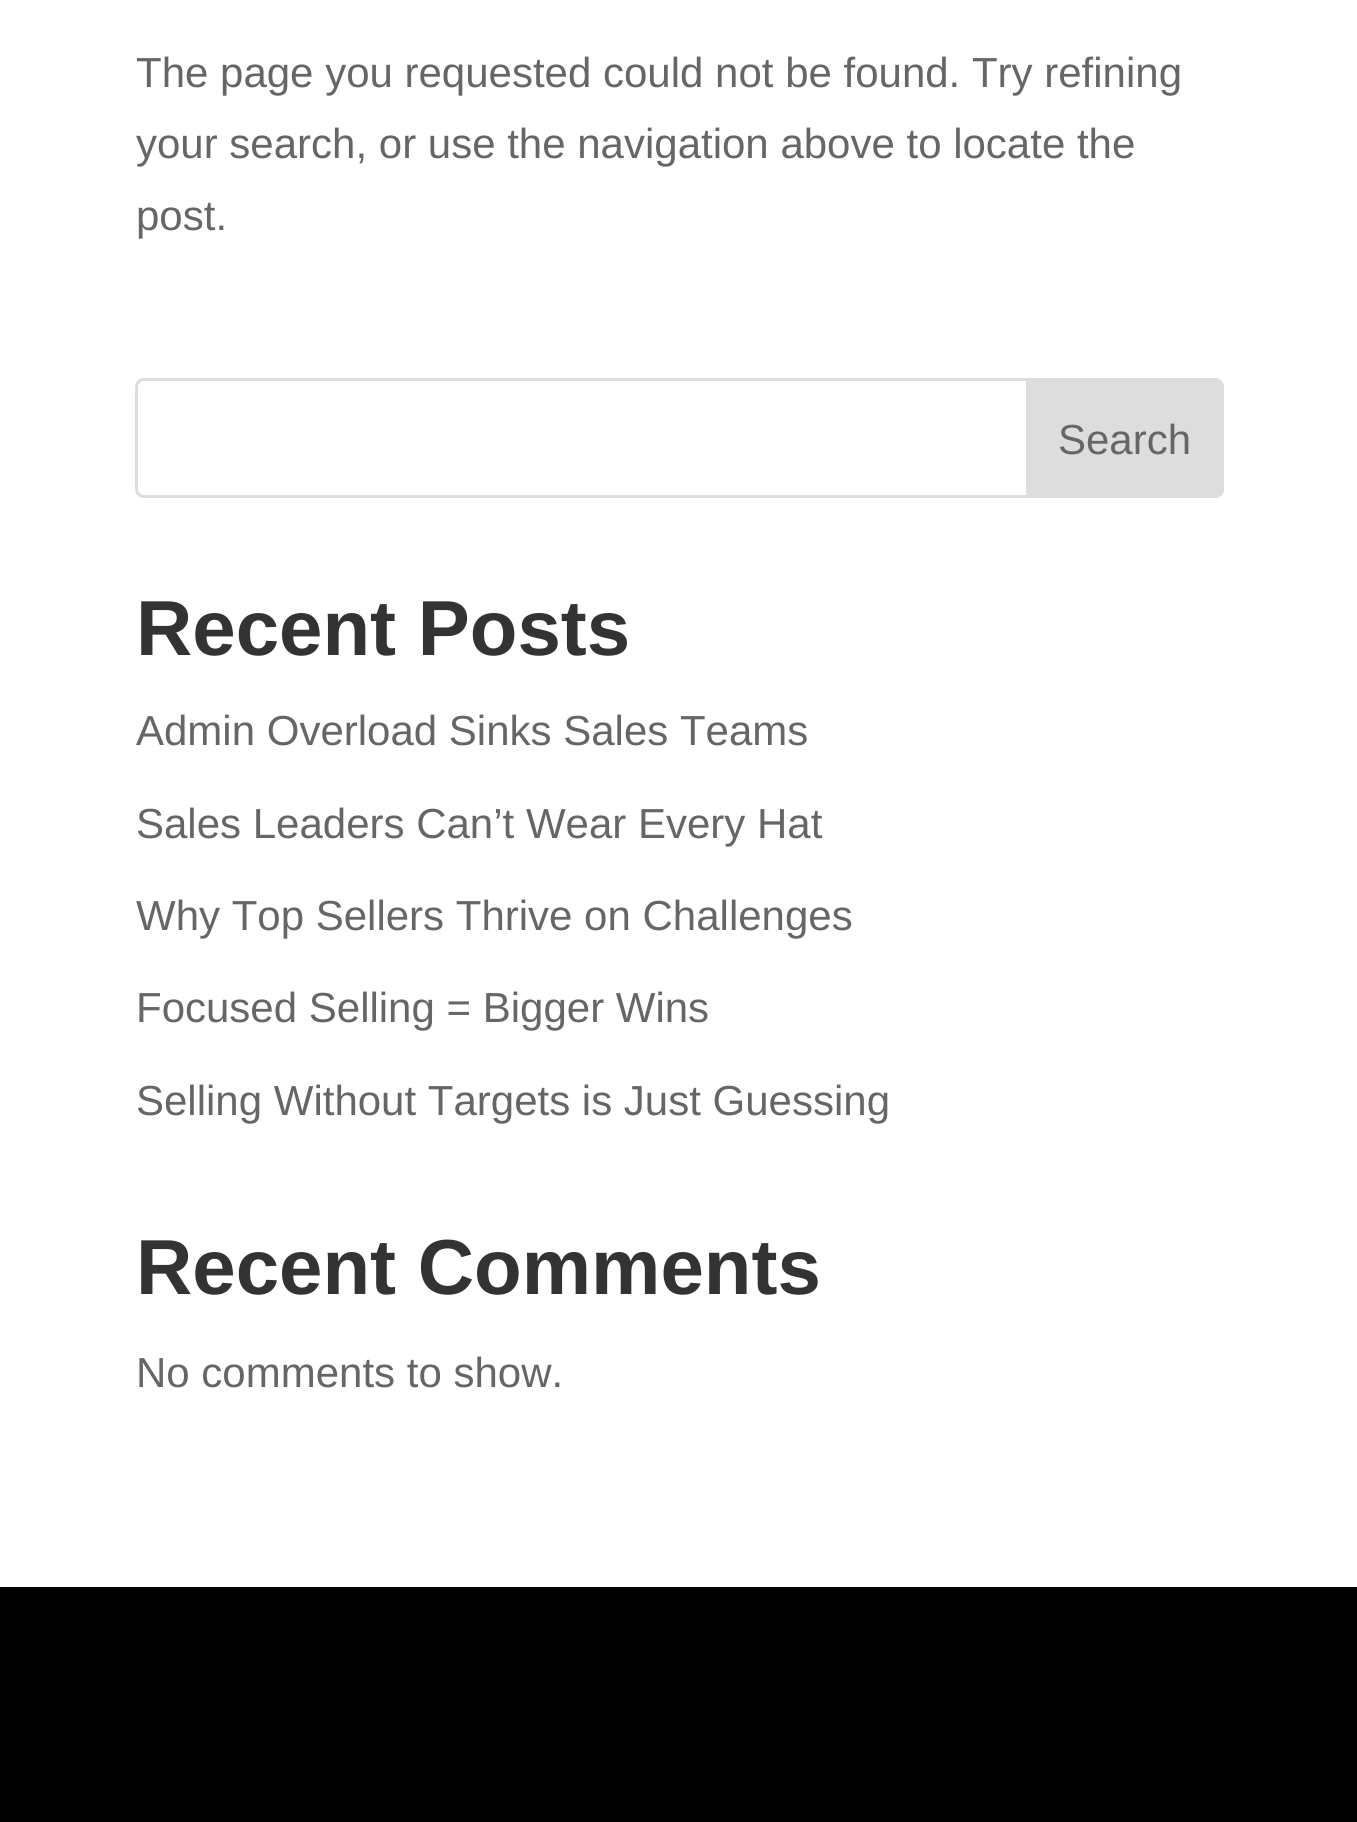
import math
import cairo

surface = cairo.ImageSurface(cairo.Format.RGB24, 1357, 1822)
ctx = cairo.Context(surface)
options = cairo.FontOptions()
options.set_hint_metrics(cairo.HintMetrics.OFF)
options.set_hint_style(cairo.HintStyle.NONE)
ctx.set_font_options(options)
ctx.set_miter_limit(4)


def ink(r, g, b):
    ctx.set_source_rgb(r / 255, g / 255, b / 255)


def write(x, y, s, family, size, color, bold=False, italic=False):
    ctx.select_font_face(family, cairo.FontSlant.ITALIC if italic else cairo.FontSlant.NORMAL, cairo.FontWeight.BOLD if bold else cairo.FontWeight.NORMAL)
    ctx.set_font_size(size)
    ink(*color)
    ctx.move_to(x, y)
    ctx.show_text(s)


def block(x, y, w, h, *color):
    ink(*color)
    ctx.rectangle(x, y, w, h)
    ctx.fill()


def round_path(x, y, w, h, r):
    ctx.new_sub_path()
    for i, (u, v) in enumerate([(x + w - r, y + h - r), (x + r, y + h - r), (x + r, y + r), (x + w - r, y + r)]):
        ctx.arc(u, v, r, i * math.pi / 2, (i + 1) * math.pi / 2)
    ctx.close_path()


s1 = dict(family="Liberation Sans", size=42, color=(102, 102, 102))
s2 = dict(family="Liberation Sans", size=78, color=(51, 51, 51), bold=True)

ink(255, 255, 255)
ctx.paint()
write(136, 87, "The page you requested could not be found. Try refining", **s1)
write(136, 158, "your search, or use the navigation above to locate the", **s1)
write(136, 230, "post.", **s1)
round_path(136.5, 379.5, 1086, 117, 7.5)
ink(221, 221, 221)
ctx.set_line_width(3)
ctx.stroke()
ctx.new_path()
ctx.move_to(1027.5, 379.5)
ctx.line_to(1215, 379.5)
ctx.curve_to(1219, 379.5, 1222.5, 383, 1222.5, 387)
ctx.line_to(1222.5, 489)
ctx.curve_to(1222.5, 493, 1219, 496.5, 1215, 496.5)
ctx.line_to(1027.5, 496.5)
ctx.close_path()
ctx.fill_preserve()
ctx.stroke()
write(1058, 454, "Search", **s1)
write(136, 655, "Recent Posts", **s2)
write(136, 745, "Admin Overload Sinks Sales Teams", **s1)
write(136, 838, "Sales Leaders Can’t Wear Every Hat", **s1)
write(136, 930, "Why Top Sellers Thrive on Challenges", **s1)
write(136, 1022, "Focused Selling = Bigger Wins", **s1)
write(136, 1115, "Selling Without Targets is Just Guessing", **s1)
write(136, 1294, "Recent Comments", **s2)
write(136, 1387, "No comments to show.", **s1)
block(0, 1587, 1357, 235, 0, 0, 0)
surface.write_to_png("screenshot.png")
